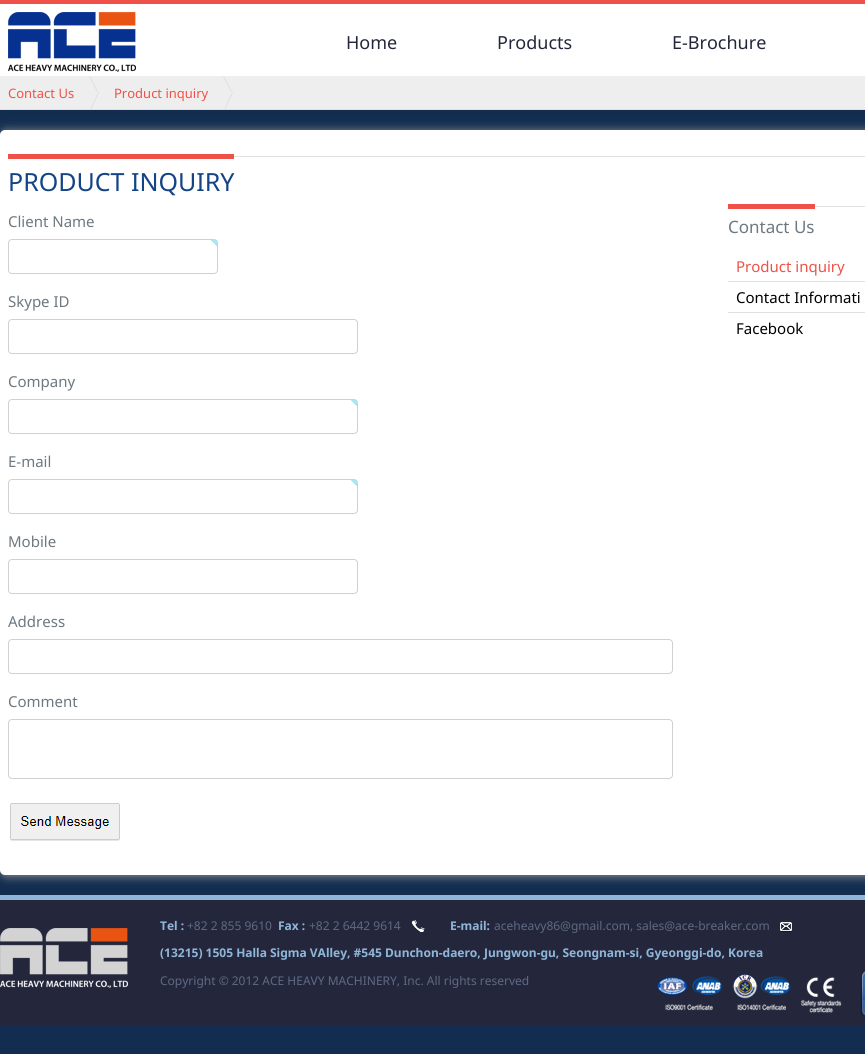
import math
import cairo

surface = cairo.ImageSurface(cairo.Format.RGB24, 865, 1054)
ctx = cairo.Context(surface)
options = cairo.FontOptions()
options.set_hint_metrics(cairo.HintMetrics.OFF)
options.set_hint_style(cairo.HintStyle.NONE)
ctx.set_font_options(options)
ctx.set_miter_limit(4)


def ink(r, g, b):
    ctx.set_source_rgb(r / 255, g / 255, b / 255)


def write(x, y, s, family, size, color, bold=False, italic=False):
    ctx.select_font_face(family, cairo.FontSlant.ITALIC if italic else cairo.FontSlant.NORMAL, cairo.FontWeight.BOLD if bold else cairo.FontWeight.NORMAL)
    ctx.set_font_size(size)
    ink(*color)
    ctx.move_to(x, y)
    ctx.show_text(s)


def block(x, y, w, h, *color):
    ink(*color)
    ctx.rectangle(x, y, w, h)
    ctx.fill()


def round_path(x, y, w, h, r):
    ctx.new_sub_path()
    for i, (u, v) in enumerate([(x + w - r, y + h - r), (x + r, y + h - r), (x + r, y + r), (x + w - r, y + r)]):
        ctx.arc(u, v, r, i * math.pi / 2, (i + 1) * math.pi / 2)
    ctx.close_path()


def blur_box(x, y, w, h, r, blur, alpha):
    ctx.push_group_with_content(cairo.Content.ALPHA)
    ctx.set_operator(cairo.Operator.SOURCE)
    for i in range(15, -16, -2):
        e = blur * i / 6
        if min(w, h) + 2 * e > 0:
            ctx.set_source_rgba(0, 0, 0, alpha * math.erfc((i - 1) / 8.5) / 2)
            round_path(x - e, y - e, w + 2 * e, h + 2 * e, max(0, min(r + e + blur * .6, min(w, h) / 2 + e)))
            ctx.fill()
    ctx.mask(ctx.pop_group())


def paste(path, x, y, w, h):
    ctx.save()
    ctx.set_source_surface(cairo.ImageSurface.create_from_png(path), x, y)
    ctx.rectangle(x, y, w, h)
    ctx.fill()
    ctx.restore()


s1 = dict(family="Noto Sans", size=18, color=(36, 39, 59))
s2 = dict(family="Noto Sans", size=13, color=(239, 81, 72))
s3 = dict(family="Noto Sans", size=25, color=(19, 68, 134))
s4 = dict(family="Noto Sans", size=15, color=(109, 120, 128))
s5 = dict(family="Noto Sans", size=17, color=(109, 120, 128))
s6 = dict(family="Noto Sans", size=15, color=(239, 81, 72))
s7 = dict(family="Noto Sans", size=15, color=(0, 0, 0))
s8 = dict(family="Noto Sans", size=12, color=(143, 181, 217), bold=True)
s9 = dict(family="Noto Sans", size=12, color=(94, 105, 132))

ink(18, 45, 80)
ctx.paint()
block(0, 4, 865, 72, 255, 255, 255)
block(0, 0, 865, 4, 239, 81, 72)
paste("pic1.png", 8, 12, 128, 60)
write(346, 49, "Home", **s1)
write(497, 49, "Products", **s1)
write(672, 49, "E-Brochure", **s1)
block(0, 76, 865, 33, 238, 238, 238)
block(0, 109, 865, 1, 224, 224, 224)
write(8, 98, "Contact Us", **s2)
paste("pic2.png", 89, 76, 10, 33)
write(114, 98, "Product inquiry", **s2)
paste("pic2.png", 223, 76, 10, 33)
ink(153, 153, 153)
blur_box(1, 131, 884, 745, 5, 5, 1)
ink(255, 255, 255)
round_path(0, 130, 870, 745, 5)
ctx.fill()
block(234, 156, 631, 1, 224, 224, 224)
block(8, 154, 226, 5, 239, 81, 72)
write(8, 191, "PRODUCT INQUIRY", **s3)
write(8, 227, "Client Name", **s4)
paste("pic3.png", 211, 240, 6, 6)
round_path(8.5, 239.5, 209, 34, 3.5)
ink(208, 208, 208)
ctx.set_line_width(1)
ctx.stroke()
write(8, 307, "Skype ID", **s4)
round_path(8.5, 319.5, 349, 34, 3.5)
ink(208, 208, 208)
ctx.stroke()
write(8, 387, "Company", **s4)
paste("pic3.png", 351, 400, 6, 6)
round_path(8.5, 399.5, 349, 34, 3.5)
ink(208, 208, 208)
ctx.stroke()
write(8, 467, "E-mail", **s4)
paste("pic3.png", 351, 480, 6, 6)
round_path(8.5, 479.5, 349, 34, 3.5)
ink(208, 208, 208)
ctx.stroke()
write(8, 547, "Mobile", **s4)
round_path(8.5, 559.5, 349, 34, 3.5)
ink(208, 208, 208)
ctx.stroke()
write(8, 627, "Address", **s4)
round_path(8.5, 639.5, 664, 34, 3.5)
ink(208, 208, 208)
ctx.stroke()
write(8, 707, "Comment", **s4)
round_path(8.5, 719.5, 664, 59, 3.5)
ink(208, 208, 208)
ctx.stroke()
paste("pic4.png", 10, 803, 110, 38)
block(815, 206, 50, 1, 224, 224, 224)
block(728, 204, 87, 5, 239, 81, 72)
write(728, 233, "Contact Us", **s5)
block(728, 281, 137, 1, 224, 224, 224)
write(736, 272, "Product inquiry", **s6)
block(728, 312, 137, 1, 224, 224, 224)
write(736, 303, "Contact Informati", **s7)
write(736, 334, "Facebook", **s7)
block(0, 900, 865, 125, 36, 39, 59)
block(0, 895, 865, 5, 143, 181, 217)
paste("pic5.png", 411, 920, 14, 12)
write(160, 930, "Tel :", **s8)
write(187, 930, "+82 2 855 9610", **s9)
write(278, 930, "Fax :", **s8)
write(309, 930, "+82 2 6442 9614", **s9)
paste("pic6.png", 780, 922, 12, 10)
write(450, 930, "E-mail:", **s8)
write(494, 930, "aceheavy86@gmail.com, sales@ace-breaker.com", **s9)
paste("pic7.png", 0, 928, 128, 60)
write(160, 957, "(13215) 1505 Halla Sigma VAlley, #545 Dunchon-daero, Jungwon-gu, Seongnam-si, Gyeonggi-do, Korea", **s8)
paste("pic8.png", 656, 974, 186, 39)
paste("pic9.png", 860, 969, 5, 49)
write(160, 985, "Copyright © 2012 ACE HEAVY MACHINERY, Inc. All rights reserved", **s9)
surface.write_to_png("screenshot.png")
